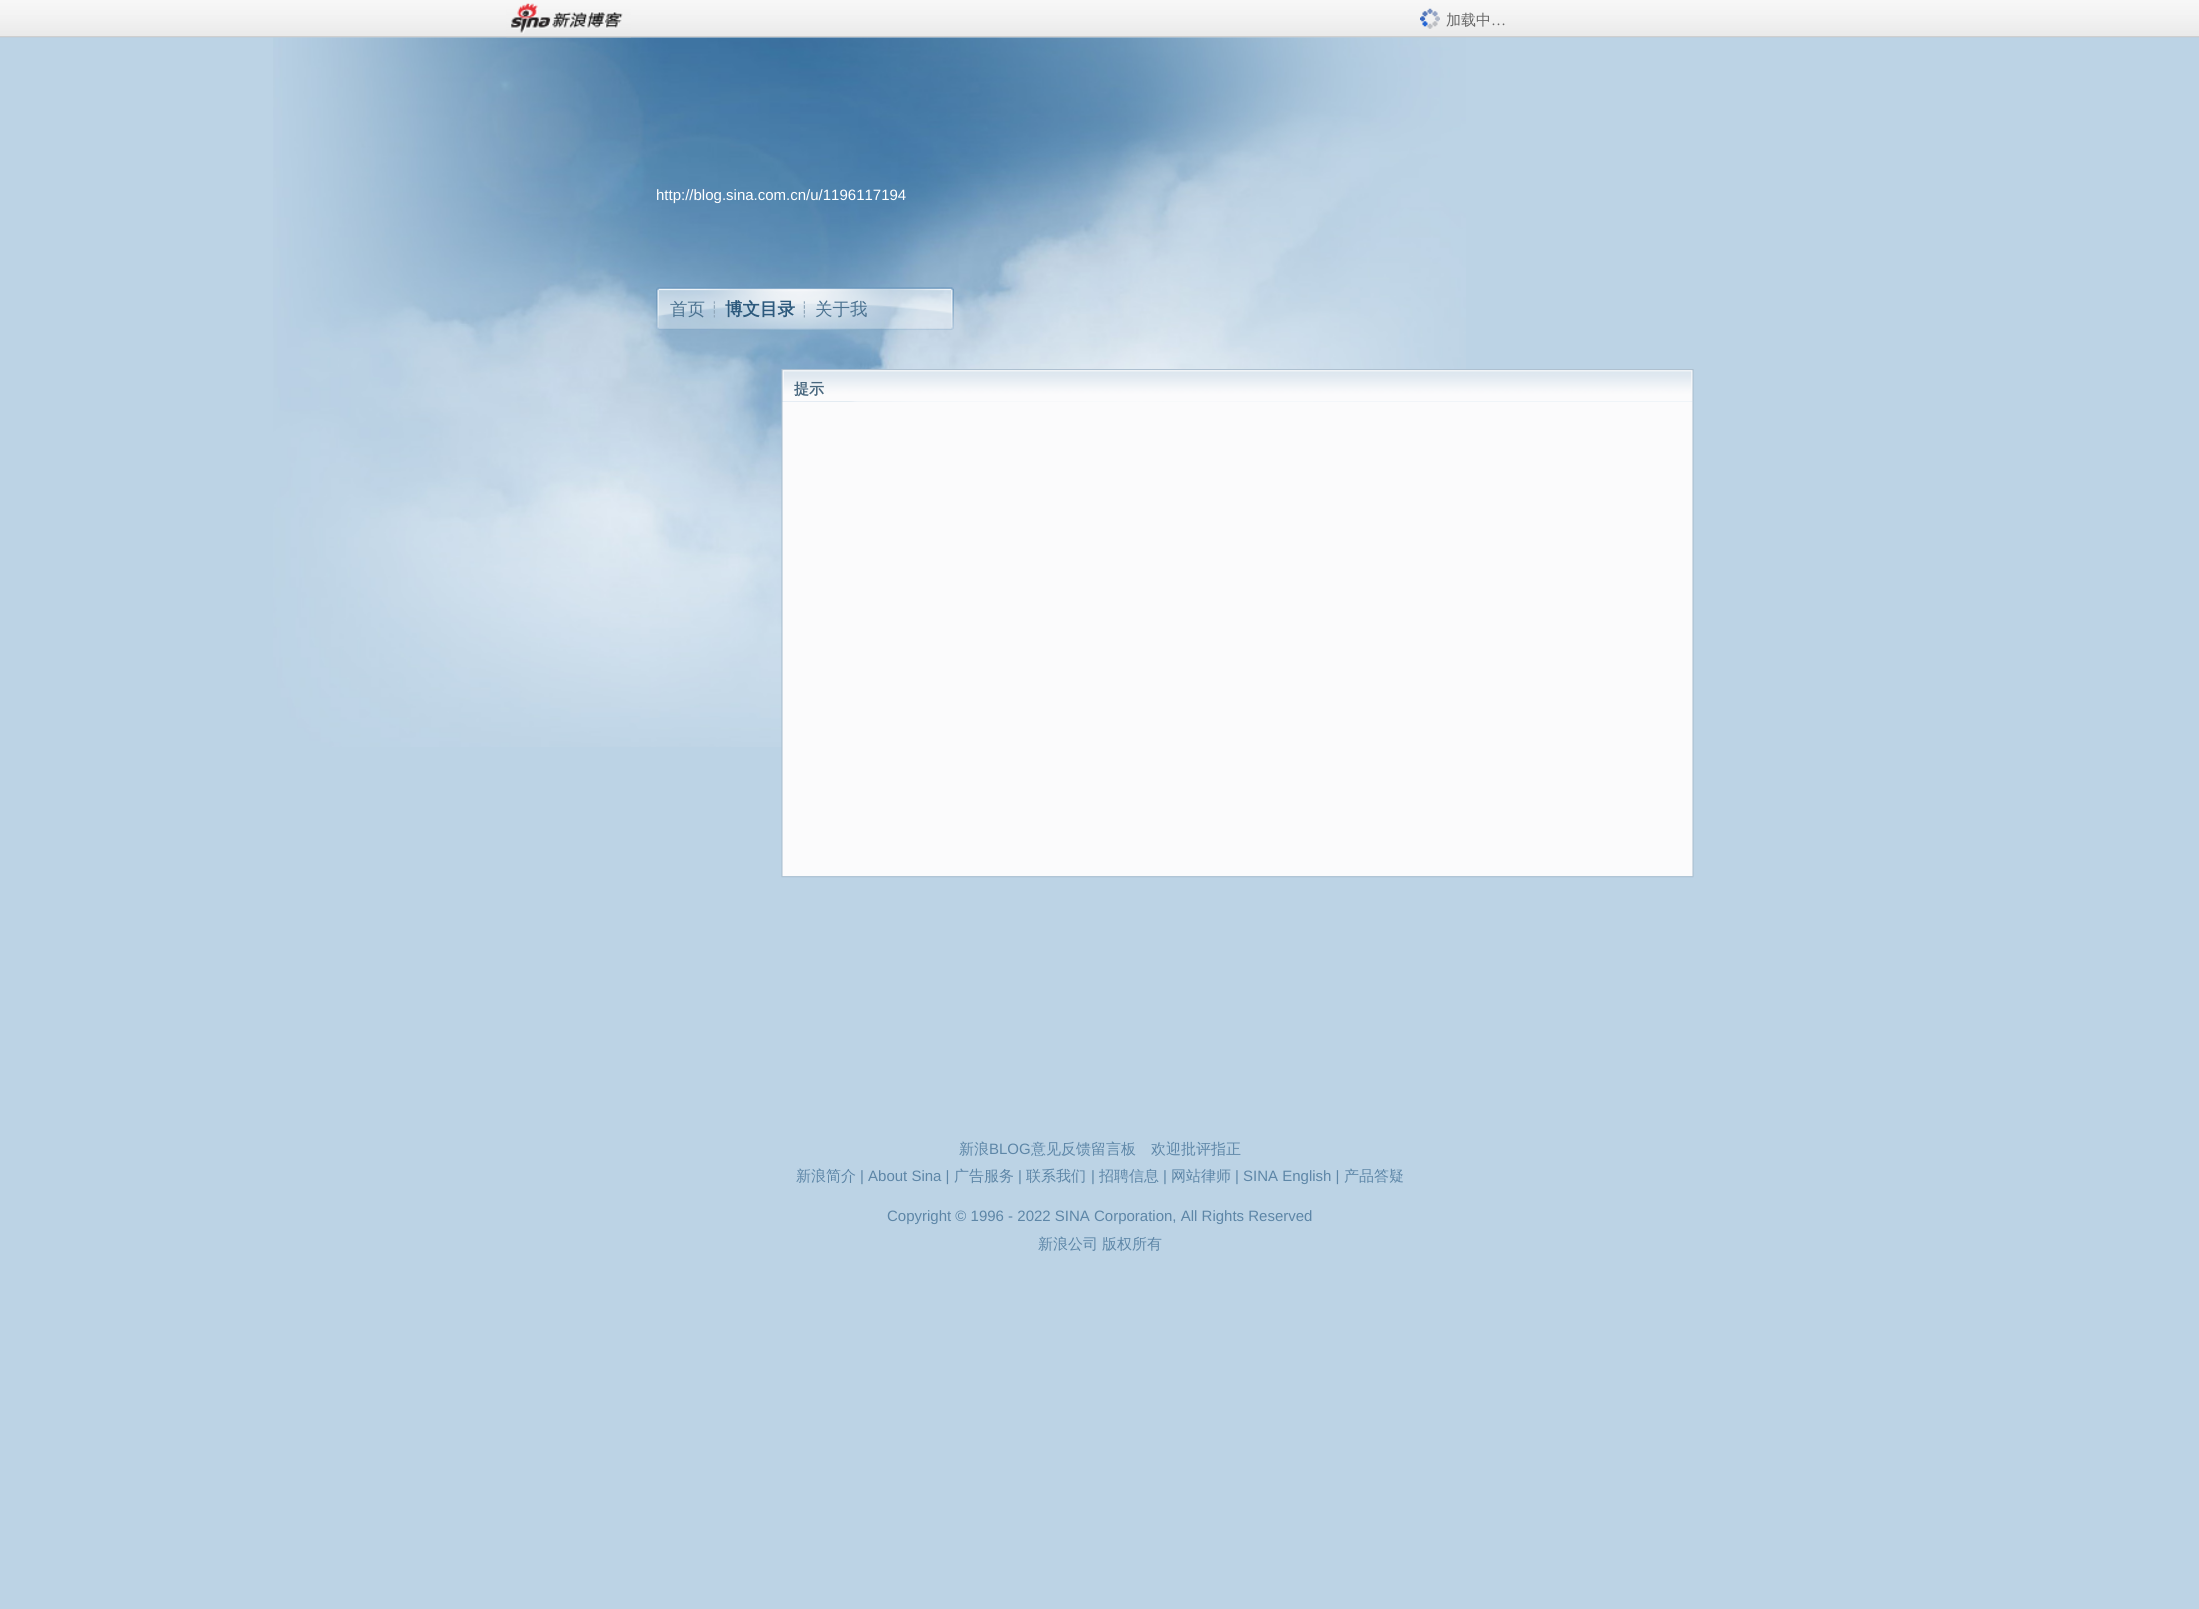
import math
import cairo

surface = cairo.ImageSurface(cairo.Format.RGB24, 2199, 1609)
ctx = cairo.Context(surface)
options = cairo.FontOptions()
options.set_hint_metrics(cairo.HintMetrics.OFF)
options.set_hint_style(cairo.HintStyle.NONE)
ctx.set_font_options(options)
ctx.set_miter_limit(4)


def ink(r, g, b):
    ctx.set_source_rgb(r / 255, g / 255, b / 255)


def write(x, y, s, family, size, color, bold=False, italic=False):
    ctx.select_font_face(family, cairo.FontSlant.ITALIC if italic else cairo.FontSlant.NORMAL, cairo.FontWeight.BOLD if bold else cairo.FontWeight.NORMAL)
    ctx.set_font_size(size)
    ink(*color)
    ctx.move_to(x, y)
    ctx.show_text(s)


def paste(path, x, y, w, h):
    ctx.save()
    ctx.set_source_surface(cairo.ImageSurface.create_from_png(path), x, y)
    ctx.rectangle(x, y, w, h)
    ctx.fill()
    ctx.restore()


s1 = dict(family="WenQuanYi Zen Hei Medium", size=15, color=(102, 102, 102))
s2 = dict(family="Liberation Serif", size=15, color=(102, 102, 102))
s3 = dict(family="Liberation Sans", size=15, color=(255, 255, 255))
s4 = dict(family="WenQuanYi Zen Hei Medium", size=17.5, color=(75, 114, 144))
s5 = dict(family="WenQuanYi Zen Hei", size=17.5, color=(44, 89, 124), bold=True)
s6 = dict(family="WenQuanYi Zen Hei", size=15, color=(73, 104, 127), bold=True)
s7 = dict(family="WenQuanYi Zen Hei Medium", size=15, color=(93, 134, 167))
s8 = dict(family="Liberation Sans", size=15, color=(93, 134, 167))

ink(188, 211, 229)
ctx.paint()
paste("pic4.png", 273, 37, 1193, 710)
paste("pic1.png", 0, 0, 2199, 38)
paste("pic2.png", 506, 3, 125, 35)
paste("pic3.png", 1420, 8, 20, 21)
write(1446, 25, "加载中", **s1)
write(1491, 25, "…", **s2)
write(656, 200, "http://blog.sina.com.cn/u/1196117194", **s3)
paste("pic5.png", 656, 287, 298, 43)
paste("pic6.png", 713, 301, 2, 17)
write(670, 315, "首页", **s4)
paste("pic7.png", 803, 301, 2, 17)
write(725, 315, "博文目录", **s5)
write(815, 315, "关于我", **s4)
paste("pic9.png", 781, 401, 913, 476)
paste("pic8.png", 781, 369, 913, 33)
write(794, 394, "提示", **s6)
paste("pic10.png", 781, 876, 913, 2)
write(959, 1154, "新浪", **s7)
write(989, 1154, "BLOG", **s8)
write(1031, 1154, "意见反馈留言板", **s7)
write(1151, 1154, "欢迎批评指正", **s7)
write(796, 1181, "新浪简介", **s7)
write(860, 1181, "| About Sina |", **s8)
write(954, 1181, "广告服务", **s7)
write(1018, 1181, "|", **s8)
write(1026, 1181, "联系我们", **s7)
write(1091, 1181, "|", **s8)
write(1099, 1181, "招聘信息", **s7)
write(1163, 1181, "|", **s8)
write(1171, 1181, "网站律师", **s7)
write(1235, 1181, "| SINA English |", **s8)
write(1344, 1181, "产品答疑", **s7)
write(887, 1221, "Copyright © 1996 - 2022 SINA Corporation, All Rights Reserved", **s8)
write(1038, 1249, "新浪公司", **s7)
write(1102, 1249, "版权所有", **s7)
surface.write_to_png("screenshot.png")
